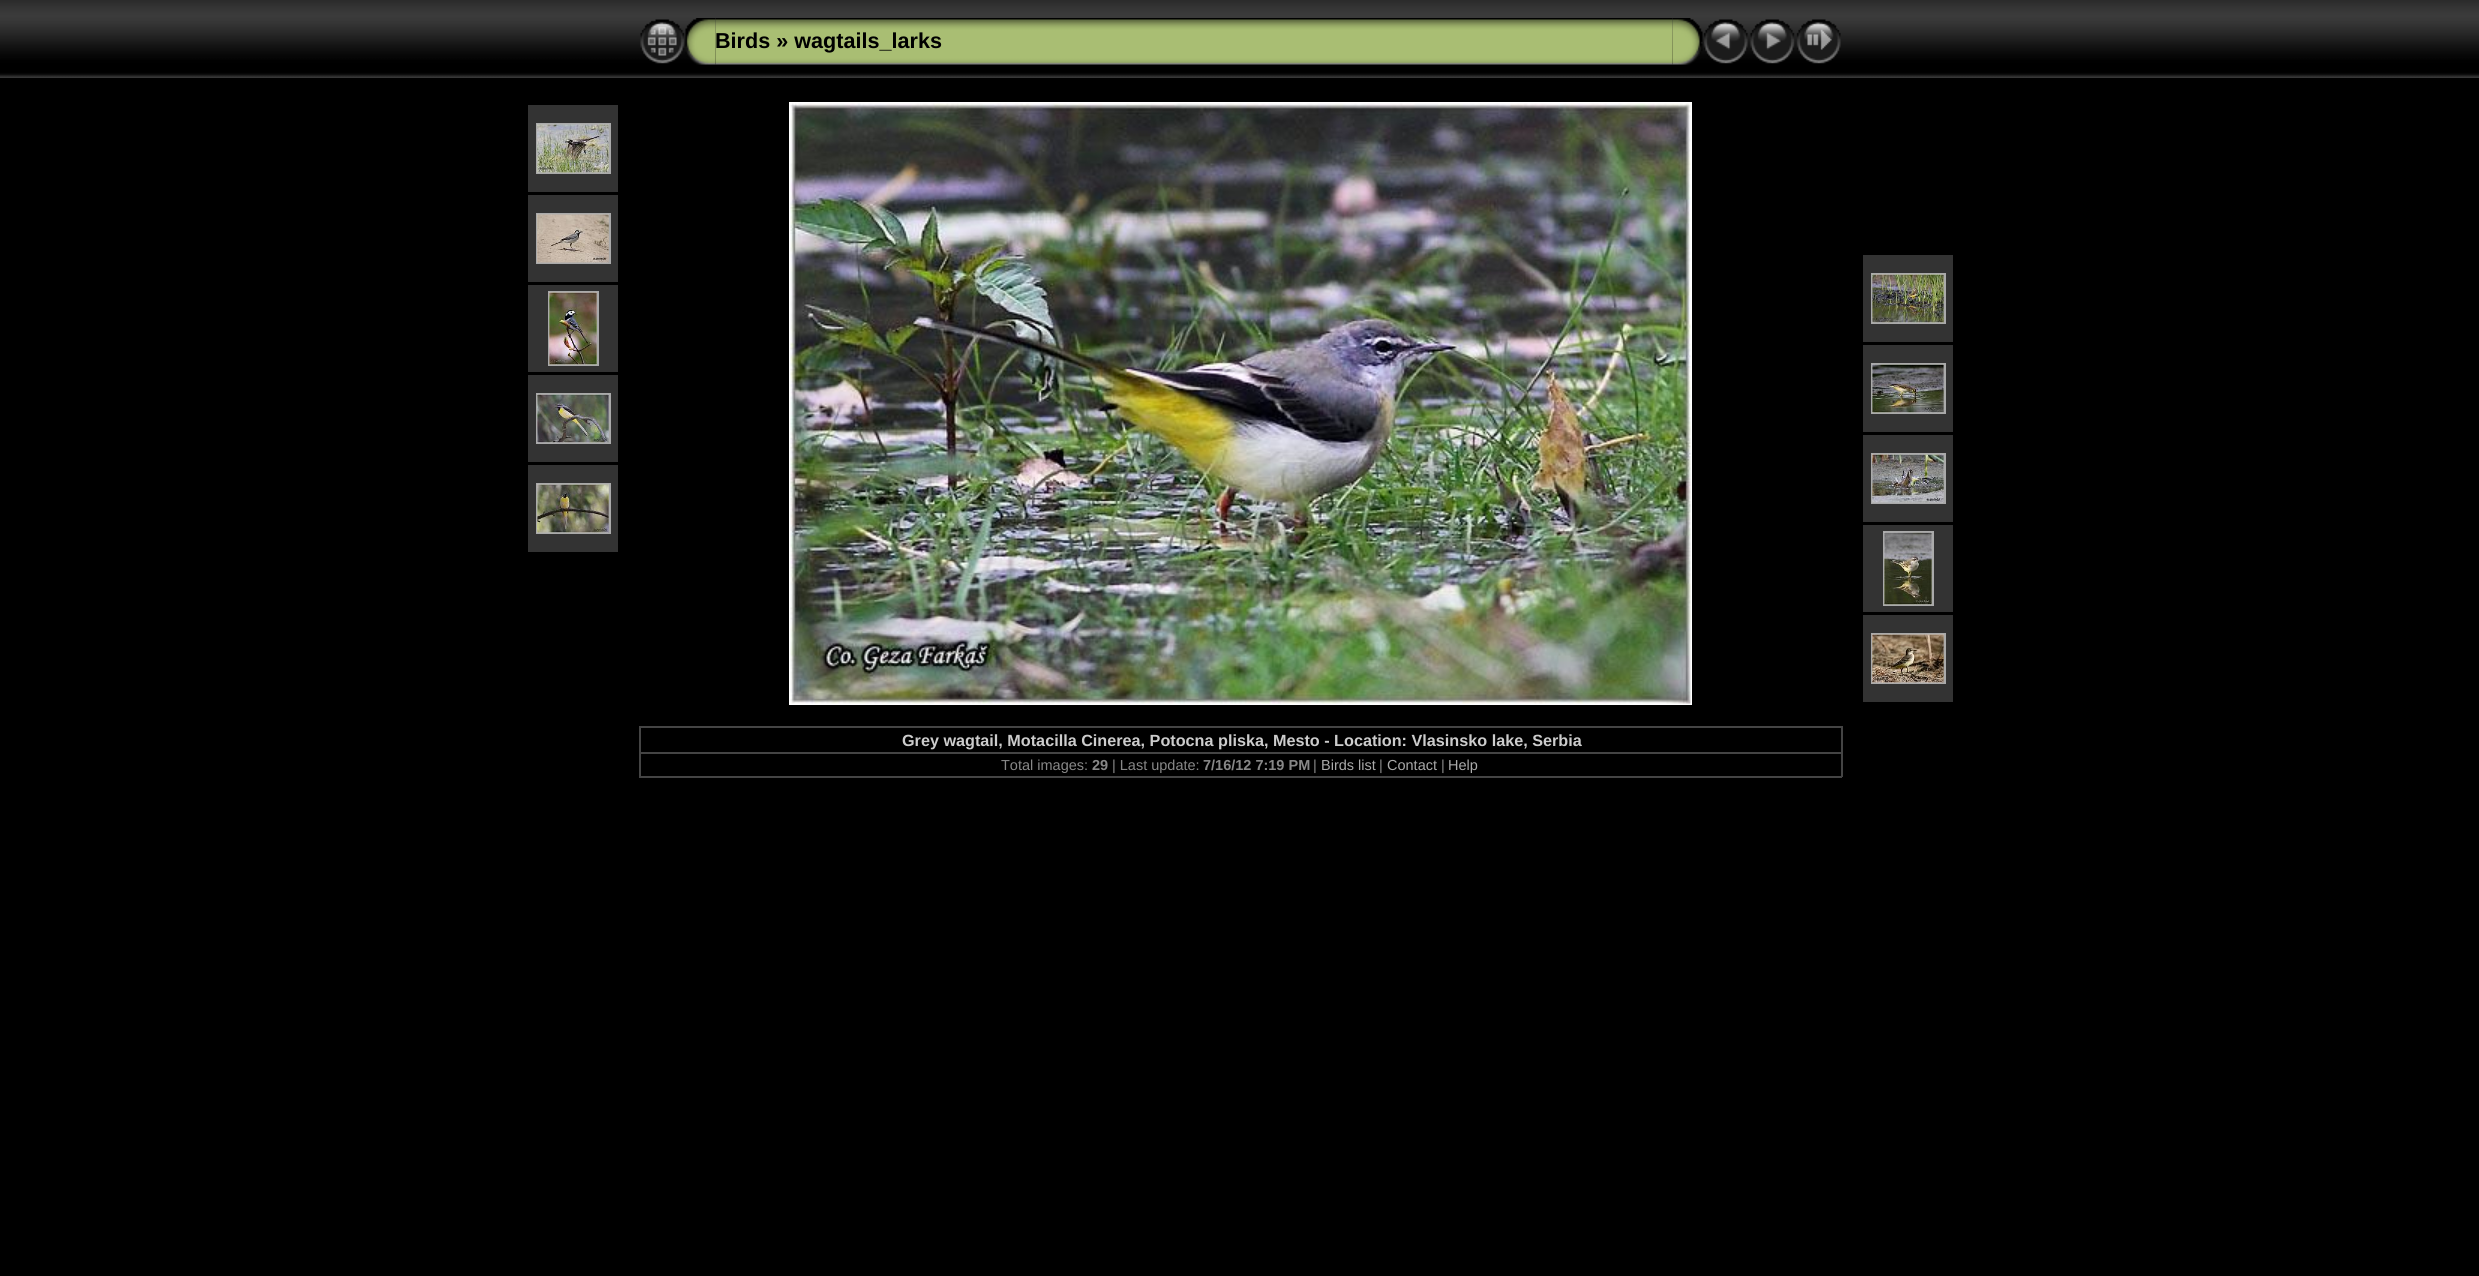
import math
import cairo

surface = cairo.ImageSurface(cairo.Format.RGB24, 2479, 1276)
ctx = cairo.Context(surface)
options = cairo.FontOptions()
options.set_hint_metrics(cairo.HintMetrics.OFF)
options.set_hint_style(cairo.HintStyle.NONE)
ctx.set_font_options(options)
ctx.set_miter_limit(4)


def ink(r, g, b):
    ctx.set_source_rgb(r / 255, g / 255, b / 255)


def write(x, y, s, family, size, color, bold=False, italic=False):
    ctx.select_font_face(family, cairo.FontSlant.ITALIC if italic else cairo.FontSlant.NORMAL, cairo.FontWeight.BOLD if bold else cairo.FontWeight.NORMAL)
    ctx.set_font_size(size)
    ink(*color)
    ctx.move_to(x, y)
    ctx.show_text(s)


def block(x, y, w, h, *color):
    ink(*color)
    ctx.rectangle(x, y, w, h)
    ctx.fill()


def paste(path, x, y, w, h):
    ctx.save()
    ctx.set_source_surface(cairo.ImageSurface.create_from_png(path), x, y)
    ctx.rectangle(x, y, w, h)
    ctx.fill()
    ctx.restore()


s1 = dict(family="Liberation Sans", size=21.6, color=(0, 0, 0), bold=True)
s2 = dict(family="Liberation Sans", size=16.2, color=(204, 204, 204), bold=True)
s3 = dict(family="Liberation Sans", size=14.5, color=(136, 136, 136))
s4 = dict(family="Liberation Sans", size=14.5, color=(136, 136, 136), bold=True)
s5 = dict(family="Liberation Sans", size=14.5, color=(170, 170, 170))

ink(0, 0, 0)
ctx.paint()
paste("pic1.png", 0, 0, 2479, 78)
paste("pic2.png", 640, 19, 45, 45)
paste("pic4.png", 715, 18, 958, 47)
paste("pic3.png", 685, 18, 31, 47)
write(715, 48, "Birds » wagtails_larks", **s1)
paste("pic5.png", 1672, 18, 31, 47)
paste("pic6.png", 1703, 19, 45, 45)
paste("pic7.png", 1750, 19, 45, 45)
paste("pic8.png", 1796, 19, 45, 45)
block(528, 105, 90, 87, 51, 51, 51)
ctx.rectangle(537, 124, 73, 49)
ink(170, 170, 170)
ctx.stroke()
paste("pic9.png", 537, 124, 72, 49)
block(528, 195, 90, 87, 51, 51, 51)
ctx.rectangle(537, 214, 73, 49)
ink(170, 170, 170)
ctx.stroke()
paste("pic10.png", 537, 214, 72, 49)
block(528, 285, 90, 87, 51, 51, 51)
ctx.rectangle(549, 292, 49, 73)
ink(170, 170, 170)
ctx.stroke()
paste("pic11.png", 549, 292, 48, 73)
block(528, 375, 90, 87, 51, 51, 51)
ctx.rectangle(537, 394, 73, 49)
ink(170, 170, 170)
ctx.stroke()
paste("pic12.png", 537, 394, 72, 49)
block(528, 465, 90, 87, 51, 51, 51)
ctx.rectangle(537, 484, 73, 49)
ink(170, 170, 170)
ctx.stroke()
paste("pic13.png", 537, 484, 72, 49)
ctx.rectangle(790, 103, 901, 601)
ink(255, 255, 255)
ctx.stroke()
paste("pic14.png", 790, 103, 901, 601)
block(1863, 255, 90, 87, 51, 51, 51)
ctx.rectangle(1872, 274, 73, 49)
ink(170, 170, 170)
ctx.stroke()
paste("pic15.png", 1872, 274, 72, 49)
block(1863, 345, 90, 87, 51, 51, 51)
ctx.rectangle(1872, 364, 73, 49)
ink(170, 170, 170)
ctx.stroke()
paste("pic16.png", 1872, 364, 72, 49)
block(1863, 435, 90, 87, 51, 51, 51)
ctx.rectangle(1872, 454, 73, 49)
ink(170, 170, 170)
ctx.stroke()
paste("pic17.png", 1872, 454, 72, 49)
block(1863, 525, 90, 87, 51, 51, 51)
ctx.rectangle(1884, 532, 49, 73)
ink(170, 170, 170)
ctx.stroke()
paste("pic18.png", 1884, 532, 48, 73)
block(1863, 615, 90, 87, 51, 51, 51)
ctx.rectangle(1872, 634, 73, 49)
ink(170, 170, 170)
ctx.stroke()
paste("pic19.png", 1872, 634, 72, 49)
block(639, 726, 1203, 2, 68, 68, 68)
block(1841, 726, 2, 51, 68, 68, 68)
block(639, 776, 1203, 2, 68, 68, 68)
block(639, 726, 2, 51, 68, 68, 68)
write(902, 746, "Grey wagtail, Motacilla Cinerea, Potocna pliska, Mesto - Location: Vlasinsko lake, Serbia", **s2)
block(639, 752, 1203, 2, 68, 68, 68)
write(1001, 770, "Total images:", **s3)
write(1092, 770, "29", **s4)
write(1112, 770, "| Last update:", **s3)
write(1203, 770, "7/16/12 7:19 PM", **s4)
write(1313, 770, "|", **s3)
write(1321, 770, "Birds list", **s5)
write(1379, 770, "|", **s3)
write(1387, 770, "Contact", **s5)
write(1441, 770, "|", **s3)
write(1448, 770, "Help", **s5)
surface.write_to_png("screenshot.png")
